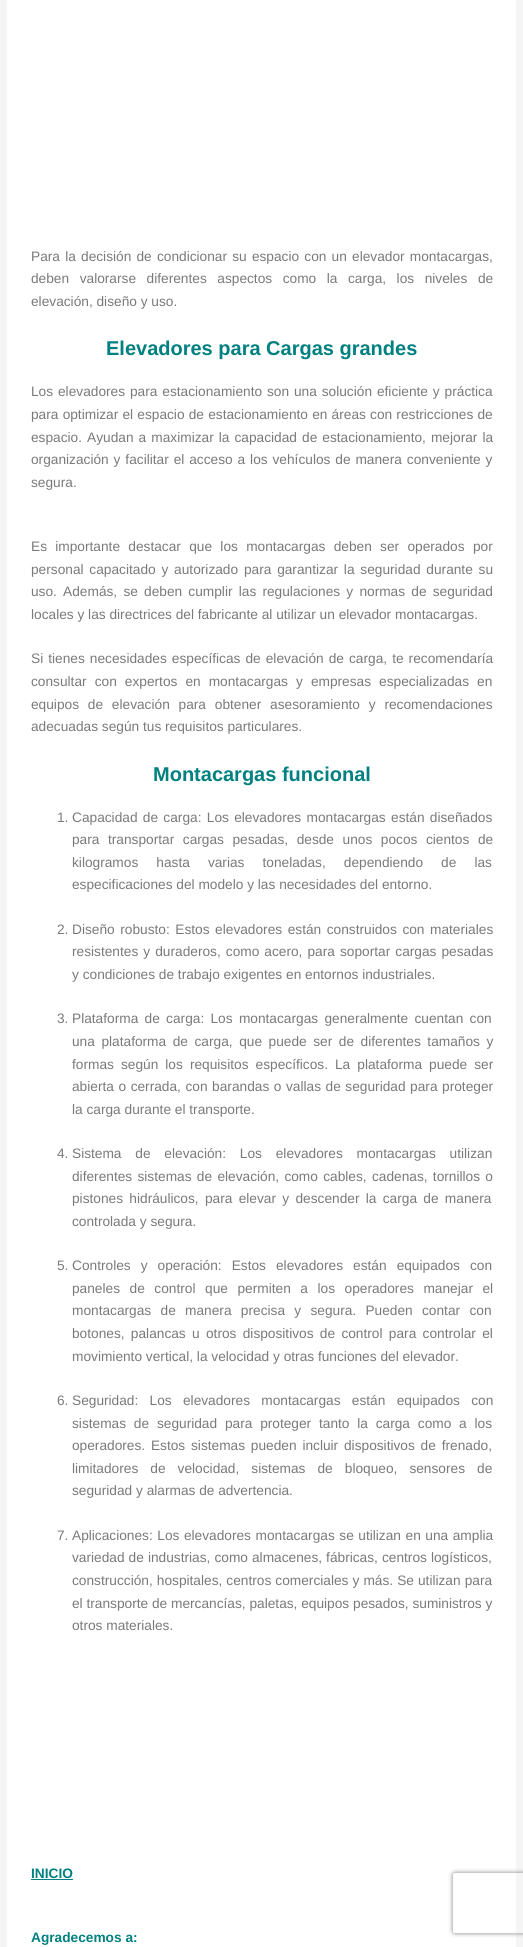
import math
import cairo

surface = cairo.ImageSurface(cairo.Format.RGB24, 523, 1947)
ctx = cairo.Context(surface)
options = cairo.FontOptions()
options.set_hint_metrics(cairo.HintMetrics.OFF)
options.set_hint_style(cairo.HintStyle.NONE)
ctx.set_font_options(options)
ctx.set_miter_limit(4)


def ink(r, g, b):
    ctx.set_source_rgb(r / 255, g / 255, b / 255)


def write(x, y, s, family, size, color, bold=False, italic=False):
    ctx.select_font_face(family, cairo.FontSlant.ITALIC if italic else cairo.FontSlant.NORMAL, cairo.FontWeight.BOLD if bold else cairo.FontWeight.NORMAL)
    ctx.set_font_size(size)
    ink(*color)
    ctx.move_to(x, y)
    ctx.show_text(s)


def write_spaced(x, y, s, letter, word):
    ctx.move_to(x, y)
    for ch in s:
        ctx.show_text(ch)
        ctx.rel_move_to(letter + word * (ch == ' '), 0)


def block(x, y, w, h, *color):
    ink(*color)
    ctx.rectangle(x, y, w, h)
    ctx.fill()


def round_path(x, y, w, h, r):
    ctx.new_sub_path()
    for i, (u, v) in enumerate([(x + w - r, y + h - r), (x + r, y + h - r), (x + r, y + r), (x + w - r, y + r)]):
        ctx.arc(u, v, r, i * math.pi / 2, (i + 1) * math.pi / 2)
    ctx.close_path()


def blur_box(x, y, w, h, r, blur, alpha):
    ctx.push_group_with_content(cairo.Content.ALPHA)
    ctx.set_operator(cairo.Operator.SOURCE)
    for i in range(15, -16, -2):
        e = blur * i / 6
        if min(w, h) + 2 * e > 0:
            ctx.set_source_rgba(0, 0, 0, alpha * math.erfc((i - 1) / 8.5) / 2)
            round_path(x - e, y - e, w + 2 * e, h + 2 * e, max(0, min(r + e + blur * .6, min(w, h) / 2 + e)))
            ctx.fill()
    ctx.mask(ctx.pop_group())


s1 = dict(family="Liberation Sans", size=13.7, color=(122, 122, 122))
s2 = dict(family="Liberation Sans", size=20, color=(0, 128, 128), bold=True)
s3 = dict(family="Liberation Sans", size=13.7, color=(0, 128, 128), bold=True)

ink(245, 245, 245)
ctx.paint()
block(7, 0, 509, 1947, 255, 255, 255)
ctx.select_font_face("Liberation Sans")
ctx.set_font_size(13.7)
ink(122, 122, 122)
write_spaced(31, 261, "Para la decisión de condicionar su espacio con un elevador montacargas,", 0, 1.4)
write_spaced(31, 283, "deben valorarse diferentes aspectos como la carga, los niveles de", 0, 6.75)
write(31, 306, "elevación, diseño y uso.", **s1)
write(106, 355, "Elevadores para Cargas grandes", **s2)
ctx.select_font_face("Liberation Sans")
ctx.set_font_size(13.7)
ink(122, 122, 122)
write_spaced(31, 396, "Los elevadores para estacionamiento son una solución eficiente y práctica", 0, 1.1)
write_spaced(31, 419, "para optimizar el espacio de estacionamiento en áreas con restricciones de", 0, 0.4)
write_spaced(31, 442, "espacio. Ayudan a maximizar la capacidad de estacionamiento, mejorar la", 0, 1.25)
write_spaced(31, 464, "organización y facilitar el acceso a los vehículos de manera conveniente y", 0, 1.1)
write(31, 487, "segura.", **s1)
write_spaced(31, 551, "Es importante destacar que los montacargas deben ser operados por", 0, 4.5)
write_spaced(31, 574, "personal capacitado y autorizado para garantizar la seguridad durante su", 0, 2)
write_spaced(31, 596, "uso. Además, se deben cumplir las regulaciones y normas de seguridad", 0, 2.4)
write(31, 619, "locales y las directrices del fabricante al utilizar un elevador montacargas.", **s1)
write_spaced(31, 663, "Si tienes necesidades específicas de elevación de carga, te recomendaría", 0, 1.25)
write_spaced(31, 686, "consultar con expertos en montacargas y empresas especializadas en", 0, 4.25)
write_spaced(31, 709, "equipos de elevación para obtener asesoramiento y recomendaciones", 0, 5)
write(31, 731, "adecuadas según tus requisitos particulares.", **s1)
write(153, 781, "Montacargas funcional", **s2)
write(57, 822, "1.", **s1)
write_spaced(72, 822, "Capacidad de carga: Los elevadores montacargas están diseñados", 0, 1.5)
write_spaced(72, 844, "para transportar cargas pesadas, desde unos pocos cientos de", 0, 4.75)
write_spaced(72, 867, "kilogramos hasta varias toneladas, dependiendo de las", 0, 14.25)
write(72, 889, "especificaciones del modelo y las necesidades del entorno.", **s1)
write(57, 934, "2.", **s1)
write_spaced(72, 934, "Diseño robusto: Estos elevadores están construidos con materiales", 0, 1.75)
write_spaced(72, 956, "resistentes y duraderos, como acero, para soportar cargas pesadas", 0, 1.25)
write(72, 979, "y condiciones de trabajo exigentes en entornos industriales.", **s1)
write(57, 1023, "3.", **s1)
write_spaced(72, 1023, "Plataforma de carga: Los montacargas generalmente cuentan con", 0, 2.5)
write_spaced(72, 1046, "una plataforma de carga, que puede ser de diferentes tamaños y", 0, 2.75)
write_spaced(72, 1069, "formas según los requisitos específicos. La plataforma puede ser", 0, 3.25)
write_spaced(72, 1091, "abierta o cerrada, con barandas o vallas de seguridad para proteger", 0, 0.75)
write(72, 1114, "la carga durante el transporte.", **s1)
write(57, 1158, "4.", **s1)
write_spaced(72, 1158, "Sistema de elevación: Los elevadores montacargas utilizan", 0, 10)
write_spaced(72, 1181, "diferentes sistemas de elevación, como cables, cadenas, tornillos o", 0, 1.5)
write_spaced(72, 1203, "pistones hidráulicos, para elevar y descender la carga de manera", 0, 2.5)
write(72, 1226, "controlada y segura.", **s1)
write(57, 1270, "5.", **s1)
write_spaced(72, 1270, "Controles y operación: Estos elevadores están equipados con", 0, 6.25)
write_spaced(72, 1293, "paneles de control que permiten a los operadores manejar el", 0, 5.75)
write_spaced(72, 1315, "montacargas de manera precisa y segura. Pueden contar con", 0, 5.5)
write_spaced(72, 1338, "botones, palancas u otros dispositivos de control para controlar el", 0, 2.5)
write(72, 1361, "movimiento vertical, la velocidad y otras funciones del elevador.", **s1)
write(57, 1405, "6.", **s1)
write_spaced(72, 1405, "Seguridad: Los elevadores montacargas están equipados con", 0, 7.5)
write_spaced(72, 1428, "sistemas de seguridad para proteger tanto la carga como a los", 0, 4)
write_spaced(72, 1450, "operadores. Estos sistemas pueden incluir dispositivos de frenado,", 0, 2)
write_spaced(72, 1473, "limitadores de velocidad, sistemas de bloqueo, sensores de", 0, 8.25)
write(72, 1495, "seguridad y alarmas de advertencia.", **s1)
write(57, 1540, "7.", **s1)
write_spaced(72, 1540, "Aplicaciones: Los elevadores montacargas se utilizan en una amplia", 0, 0.75)
write_spaced(72, 1562, "variedad de industrias, como almacenes, fábricas, centros logísticos,", 0, 0.25)
write_spaced(72, 1585, "construcción, hospitales, centros comerciales y más. Se utilizan para", 0, 0.25)
write(72, 1608, "el transporte de mercancías, paletas, equipos pesados, suministros y", **s1)
write(72, 1630, "otros materiales.", **s1)
write(31, 1878, "INICIO", **s3)
block(31, 1879, 42, 1, 0, 128, 128)
write(31, 1942, "Agradecemos a:", **s3)
ctx.save()
ctx.set_fill_rule(cairo.FillRule.EVEN_ODD)
ctx.new_path()
ctx.move_to(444, 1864)
ctx.line_to(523, 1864)
ctx.line_to(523, 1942)
ctx.line_to(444, 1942)
ctx.close_path()
ctx.move_to(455, 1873)
ctx.line_to(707, 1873)
ctx.curve_to(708, 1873, 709, 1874, 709, 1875)
ctx.line_to(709, 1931)
ctx.curve_to(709, 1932, 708, 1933, 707, 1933)
ctx.line_to(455, 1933)
ctx.curve_to(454, 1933, 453, 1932, 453, 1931)
ctx.line_to(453, 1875)
ctx.curve_to(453, 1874, 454, 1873, 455, 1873)
ctx.close_path()
ctx.clip()
ink(128, 128, 128)
blur_box(453, 1873, 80, 60, 2, 2.5, 1)
ctx.restore()
surface.write_to_png("screenshot.png")
